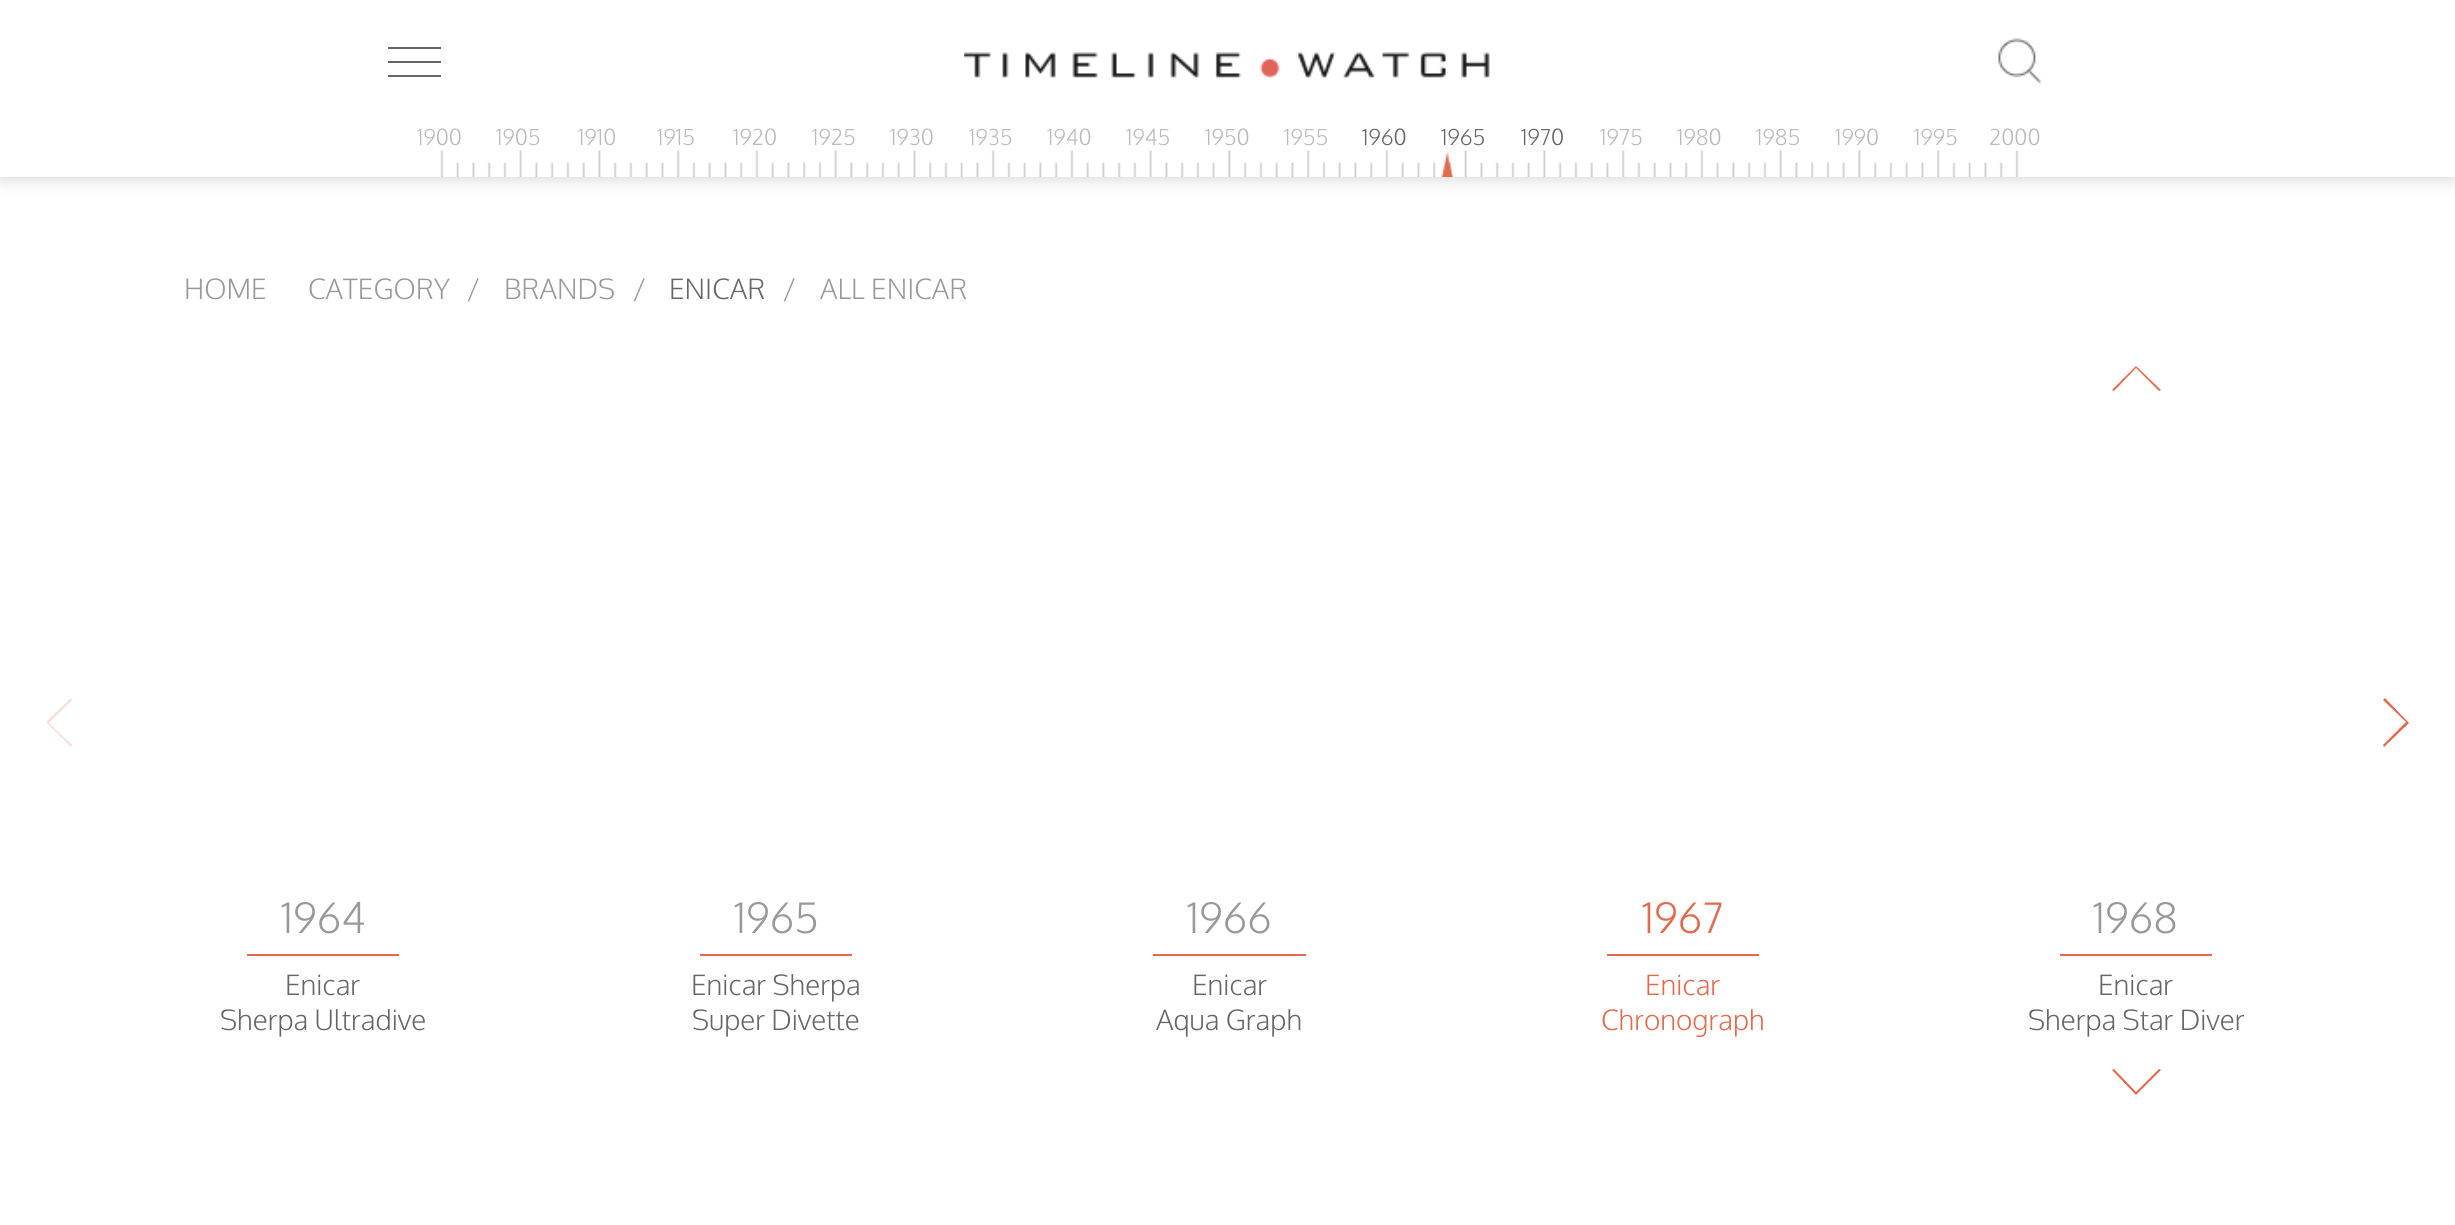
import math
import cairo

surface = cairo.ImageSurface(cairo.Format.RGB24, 2455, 1225)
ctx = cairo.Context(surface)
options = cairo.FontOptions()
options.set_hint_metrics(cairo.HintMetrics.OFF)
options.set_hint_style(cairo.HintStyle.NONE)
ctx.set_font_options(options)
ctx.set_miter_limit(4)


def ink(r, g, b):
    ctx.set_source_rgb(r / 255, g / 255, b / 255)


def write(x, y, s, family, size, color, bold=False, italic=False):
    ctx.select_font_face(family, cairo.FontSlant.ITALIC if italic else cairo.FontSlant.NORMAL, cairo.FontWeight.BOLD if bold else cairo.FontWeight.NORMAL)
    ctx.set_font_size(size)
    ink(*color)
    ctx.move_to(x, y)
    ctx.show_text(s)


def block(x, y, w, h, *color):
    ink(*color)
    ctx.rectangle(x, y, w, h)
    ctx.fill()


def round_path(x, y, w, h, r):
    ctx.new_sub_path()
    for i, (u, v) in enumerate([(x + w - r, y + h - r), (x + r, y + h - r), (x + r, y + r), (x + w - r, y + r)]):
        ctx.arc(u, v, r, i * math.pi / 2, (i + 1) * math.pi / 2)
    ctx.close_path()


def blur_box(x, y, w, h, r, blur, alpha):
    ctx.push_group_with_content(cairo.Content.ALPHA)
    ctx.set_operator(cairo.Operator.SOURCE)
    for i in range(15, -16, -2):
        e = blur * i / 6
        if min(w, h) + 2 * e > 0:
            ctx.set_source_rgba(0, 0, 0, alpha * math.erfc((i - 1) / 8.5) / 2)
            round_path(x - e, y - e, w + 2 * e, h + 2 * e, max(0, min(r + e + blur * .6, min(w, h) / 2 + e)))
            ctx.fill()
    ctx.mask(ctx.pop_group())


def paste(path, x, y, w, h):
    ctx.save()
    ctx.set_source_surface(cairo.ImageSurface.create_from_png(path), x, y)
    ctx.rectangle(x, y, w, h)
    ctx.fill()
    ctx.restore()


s1 = dict(family="Oxygen Light", size=22, color=(187, 187, 187))
s2 = dict(family="Oxygen Light", size=22, color=(102, 102, 102))
s3 = dict(family="Oxygen Light", size=28, color=(153, 153, 153))
s4 = dict(family="Oxygen Light", size=28, color=(102, 102, 102))
s5 = dict(family="Oxygen Light", size=42, color=(153, 153, 153))
s6 = dict(family="Oxygen Light", size=42, color=(227, 106, 77))
s7 = dict(family="Oxygen Light", size=28, color=(227, 106, 77))

ink(255, 255, 255)
ctx.paint()
ctx.save()
ctx.set_fill_rule(cairo.FillRule.EVEN_ODD)
ctx.new_path()
ctx.move_to(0, 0)
ctx.line_to(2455, 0)
ctx.line_to(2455, 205)
ctx.line_to(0, 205)
ctx.close_path()
ctx.move_to(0, 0)
ctx.line_to(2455, 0)
ctx.line_to(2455, 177)
ctx.line_to(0, 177)
ctx.close_path()
ctx.clip()
ink(0, 0, 0)
blur_box(0, 0, 2455, 177, 0, 9, 0.2)
ctx.restore()
ctx.set_source_rgba(1, 1, 1, 0.9)
ctx.rectangle(0, 176, 2455, 1)
ctx.fill()
ink(102, 102, 102)
ctx.new_path()
ctx.move_to(388, 47)
ctx.line_to(441, 47)
ctx.line_to(441, 49)
ctx.line_to(388, 49)
ctx.close_path()
ctx.move_to(388, 61)
ctx.line_to(441, 61)
ctx.line_to(441, 63)
ctx.line_to(388, 63)
ctx.close_path()
ctx.move_to(388, 75)
ctx.line_to(441, 75)
ctx.line_to(441, 77)
ctx.line_to(388, 77)
ctx.close_path()
ctx.fill()
paste("pic1.png", 964, 52, 526, 26)
paste("pic2.png", 1998, 38, 43, 47)
paste("pic3.png", 440, 150, 1579, 27)
write(417, 145, "1900", **s1)
write(496, 145, "1905", **s1)
write(578, 145, "1910", **s1)
write(657, 145, "1915", **s1)
write(733, 145, "1920", **s1)
write(812, 145, "1925", **s1)
write(890, 145, "1930", **s1)
write(969, 145, "1935", **s1)
write(1047, 145, "1940", **s1)
write(1126, 145, "1945", **s1)
write(1205, 145, "1950", **s1)
write(1284, 145, "1955", **s1)
write(1362, 145, "1960", **s2)
write(1441, 145, "1965", **s2)
write(1521, 145, "1970", **s2)
write(1600, 145, "1975", **s1)
write(1677, 145, "1980", **s1)
write(1756, 145, "1985", **s1)
write(1835, 145, "1990", **s1)
write(1914, 145, "1995", **s1)
write(1989, 145, "2000", **s1)
paste("pic4.png", 1441, 152, 13, 25)
write(184, 299, "HOME", **s3)
write(308, 299, "CATEGORY", **s3)
write(467, 299, "/", **s3)
write(504, 299, "BRANDS", **s3)
write(633, 299, "/", **s3)
write(669, 299, "ENICAR", **s4)
write(783, 299, "/", **s3)
write(820, 299, "ALL ENICAR", **s3)
ink(249, 222, 216)
ctx.new_path()
ctx.move_to(49, 723)
ctx.line_to(72, 700)
ctx.line_to(71, 698)
ctx.line_to(46, 722)
ctx.line_to(71, 747)
ctx.line_to(72, 745)
ctx.close_path()
ctx.fill()
ink(227, 106, 77)
ctx.new_path()
ctx.move_to(2406, 722)
ctx.line_to(2383, 745)
ctx.line_to(2384, 747)
ctx.line_to(2409, 723)
ctx.line_to(2385, 698)
ctx.line_to(2383, 700)
ctx.close_path()
ctx.fill()
write(281, 933, "1964", **s5)
block(247, 954, 152, 2, 227, 106, 77)
write(285, 995, "Enicar", **s4)
write(220, 1030, "Sherpa Ultradive", **s4)
write(734, 933, "1965", **s5)
block(700, 954, 152, 2, 227, 106, 77)
write(691, 995, "Enicar Sherpa", **s4)
write(692, 1030, "Super Divette", **s4)
write(1187, 933, "1966", **s5)
block(1153, 954, 153, 2, 227, 106, 77)
write(1192, 995, "Enicar", **s4)
write(1156, 1030, "Aqua Graph", **s4)
write(1642, 933, "1967", **s6)
block(1607, 954, 152, 2, 227, 106, 77)
write(1645, 995, "Enicar", **s7)
write(1601, 1030, "Chronograph", **s7)
ctx.new_path()
ctx.move_to(2136, 368)
ctx.line_to(2114, 391)
ctx.line_to(2112, 390)
ctx.line_to(2136, 366)
ctx.line_to(2161, 390)
ctx.line_to(2159, 391)
ctx.close_path()
ctx.fill()
write(2093, 933, "1968", **s5)
block(2060, 954, 152, 2, 227, 106, 77)
write(2098, 995, "Enicar", **s4)
write(2028, 1030, "Sherpa Star Diver", **s4)
ink(227, 106, 77)
ctx.new_path()
ctx.move_to(2136, 1092)
ctx.line_to(2114, 1069)
ctx.line_to(2112, 1070)
ctx.line_to(2136, 1095)
ctx.line_to(2161, 1070)
ctx.line_to(2159, 1069)
ctx.close_path()
ctx.fill()
surface.write_to_png("screenshot.png")
